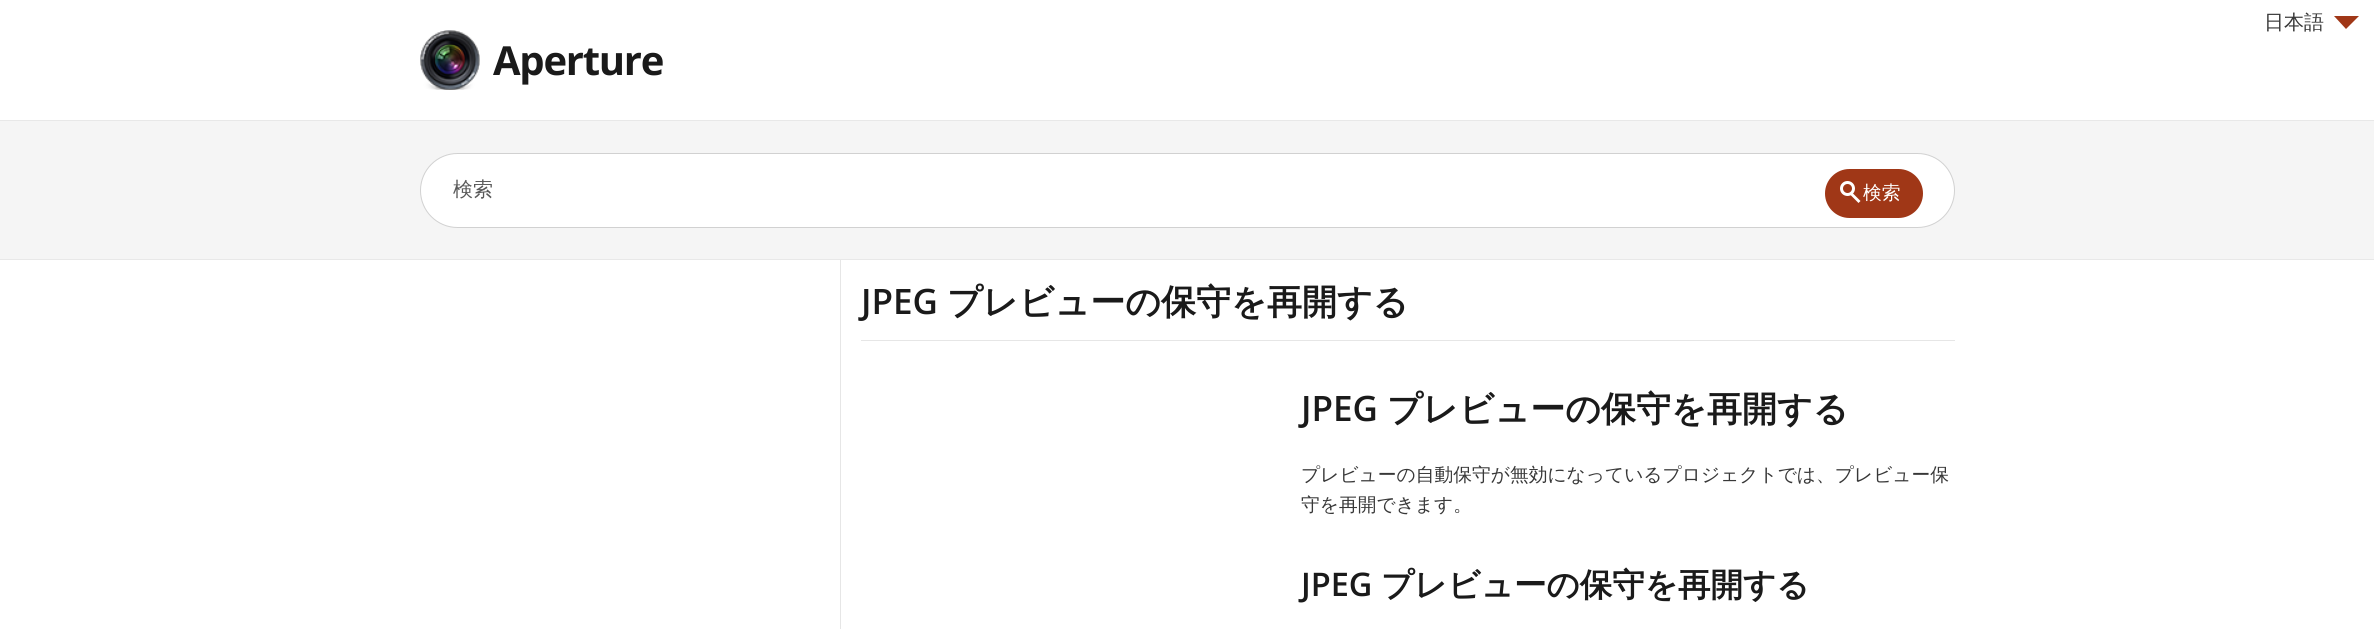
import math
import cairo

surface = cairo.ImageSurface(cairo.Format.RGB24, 2374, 629)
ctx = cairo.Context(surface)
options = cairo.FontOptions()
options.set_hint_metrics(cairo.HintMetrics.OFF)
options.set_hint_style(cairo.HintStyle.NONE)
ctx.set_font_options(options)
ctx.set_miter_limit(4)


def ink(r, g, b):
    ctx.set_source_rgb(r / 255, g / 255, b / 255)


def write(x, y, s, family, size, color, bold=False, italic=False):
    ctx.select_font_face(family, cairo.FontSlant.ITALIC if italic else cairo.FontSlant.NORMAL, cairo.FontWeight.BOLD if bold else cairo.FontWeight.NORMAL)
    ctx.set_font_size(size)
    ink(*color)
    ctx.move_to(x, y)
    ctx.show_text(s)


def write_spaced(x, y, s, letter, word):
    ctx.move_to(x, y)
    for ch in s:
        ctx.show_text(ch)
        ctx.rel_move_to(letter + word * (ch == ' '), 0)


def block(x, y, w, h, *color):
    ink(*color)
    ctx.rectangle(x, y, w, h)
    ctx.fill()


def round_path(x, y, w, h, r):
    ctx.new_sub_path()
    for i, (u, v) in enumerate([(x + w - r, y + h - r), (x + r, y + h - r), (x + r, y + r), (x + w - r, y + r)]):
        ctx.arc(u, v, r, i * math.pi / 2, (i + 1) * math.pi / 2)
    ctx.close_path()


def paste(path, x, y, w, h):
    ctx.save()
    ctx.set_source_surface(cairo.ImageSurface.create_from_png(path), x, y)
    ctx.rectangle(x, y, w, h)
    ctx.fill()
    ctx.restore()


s1 = dict(family="WenQuanYi Zen Hei Medium", size=20, color=(56, 56, 56))
s2 = dict(family="WenQuanYi Zen Hei Medium", size=20, color=(89, 89, 89))
s3 = dict(family="WenQuanYi Zen Hei Medium", size=18.75, color=(255, 255, 255))
s4 = dict(family="Open Sans SemiBold", size=35, color=(26, 26, 26))
s5 = dict(family="WenQuanYi Zen Hei", size=35, color=(26, 26, 26), bold=True)
s6 = dict(family="WenQuanYi Zen Hei Medium", size=18.75, color=(56, 56, 56))
s7 = dict(family="Open Sans SemiBold", size=32.5, color=(26, 26, 26))
s8 = dict(family="WenQuanYi Zen Hei", size=32.5, color=(26, 26, 26), bold=True)

ink(255, 255, 255)
ctx.paint()
write(2264, 29, "日本語", **s1)
ink(160, 55, 23)
ctx.new_path()
ctx.move_to(2334, 16)
ctx.line_to(2359, 16)
ctx.line_to(2346, 29)
ctx.close_path()
ctx.fill()
paste("pic1.png", 420, 30, 60, 60)
ctx.select_font_face("Open Sans", cairo.FontSlant.NORMAL, cairo.FontWeight.BOLD)
ctx.set_font_size(40)
ink(26, 26, 26)
write_spaced(493, 75, "Aperture", -1.25, 0)
block(0, 121, 2374, 138, 245, 245, 245)
block(0, 120, 2374, 1, 232, 232, 232)
block(0, 259, 2374, 1, 232, 232, 232)
ink(255, 255, 255)
round_path(420.5, 153.5, 1534, 74, 37)
ctx.fill_preserve()
ink(209, 209, 209)
ctx.set_line_width(1)
ctx.stroke()
write(453, 196, "検索", **s2)
ink(160, 55, 23)
round_path(1825, 169, 98, 49, 24.5)
ctx.fill()
ctx.arc(1847.5, 188.5, 6, 0, 2 * math.pi)
ink(255, 255, 255)
ctx.set_line_width(3)
ctx.stroke()
ctx.new_path()
ctx.move_to(1851.5, 192)
ctx.line_to(1860.5, 201)
ctx.line_to(1858.5, 203)
ctx.line_to(1849.5, 194)
ctx.close_path()
ctx.fill()
write(1863, 199, "検索", **s3)
block(840, 260, 1, 369, 230, 230, 230)
block(861, 340, 1094, 1, 230, 230, 230)
write(861, 314, "JPEG", **s4)
write(947, 314, "プレビューの保守を再開する", **s5)
write(1301, 421, "JPEG", **s4)
write(1387, 421, "プレビューの保守を再開する", **s5)
write(1301, 481, "プレビューの自動保守が無効になっているプロジェクトでは、プレビュー保", **s6)
write(1301, 511, "守を再開できます。", **s6)
write(1301, 596, "JPEG", **s7)
write(1381, 596, "プレビューの保守を再開する", **s8)
surface.write_to_png("screenshot.png")
